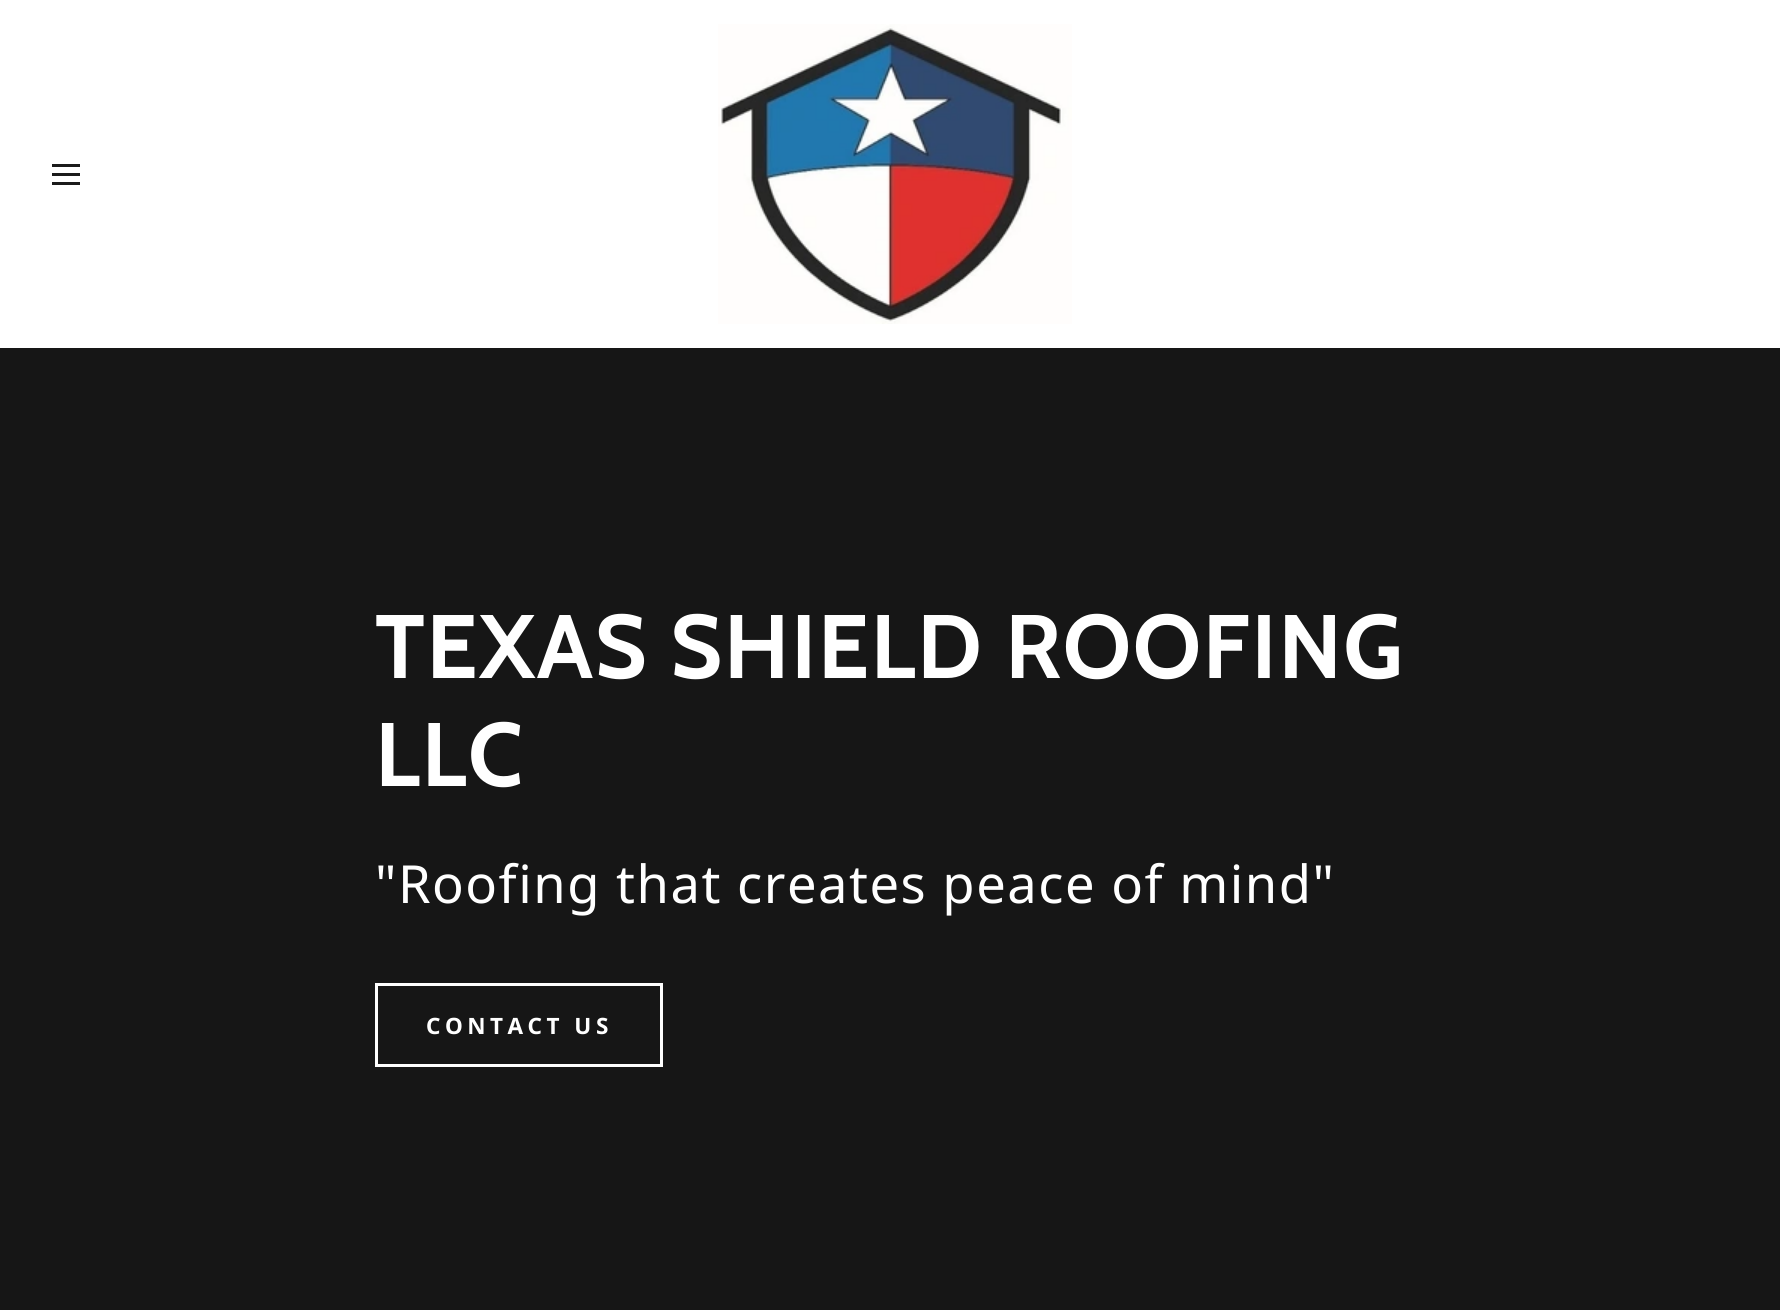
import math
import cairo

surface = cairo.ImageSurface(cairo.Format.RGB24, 1780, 1310)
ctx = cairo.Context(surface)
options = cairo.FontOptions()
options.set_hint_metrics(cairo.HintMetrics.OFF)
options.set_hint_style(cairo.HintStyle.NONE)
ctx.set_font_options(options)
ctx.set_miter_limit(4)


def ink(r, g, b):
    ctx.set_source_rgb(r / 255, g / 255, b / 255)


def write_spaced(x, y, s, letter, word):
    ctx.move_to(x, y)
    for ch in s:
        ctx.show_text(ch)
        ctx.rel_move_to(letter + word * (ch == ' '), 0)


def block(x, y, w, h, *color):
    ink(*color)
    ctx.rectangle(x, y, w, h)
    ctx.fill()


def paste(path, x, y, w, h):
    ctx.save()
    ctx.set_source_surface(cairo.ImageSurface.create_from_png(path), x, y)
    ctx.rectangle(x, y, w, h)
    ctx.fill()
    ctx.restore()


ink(22, 22, 22)
ctx.paint()
block(0, 0, 1780, 348, 255, 255, 255)
block(52, 164, 28, 3, 27, 27, 27)
block(52, 173, 28, 3, 27, 27, 27)
block(52, 182, 28, 3, 27, 27, 27)
paste("pic1.png", 718, 24, 354, 300)
ctx.select_font_face("Cabin", cairo.FontSlant.NORMAL, cairo.FontWeight.BOLD)
ctx.set_font_size(90)
ink(255, 255, 255)
write_spaced(375, 678, "TEXAS SHIELD ROOFING", 1.5, 0)
write_spaced(375, 786, "LLC", 1.5, 0)
ctx.select_font_face("Noto Sans")
ctx.set_font_size(52.5)
write_spaced(375, 903, "\"Roofing that creates peace of mind\"", 1.5, 0)
ctx.rectangle(376.5, 984.5, 285, 81)
ctx.set_line_width(3)
ctx.stroke()
ctx.select_font_face("Noto Sans", cairo.FontSlant.NORMAL, cairo.FontWeight.BOLD)
ctx.set_font_size(22.5)
write_spaced(426, 1034, "CONTACT US", 4.5, 0)
surface.write_to_png("screenshot.png")
